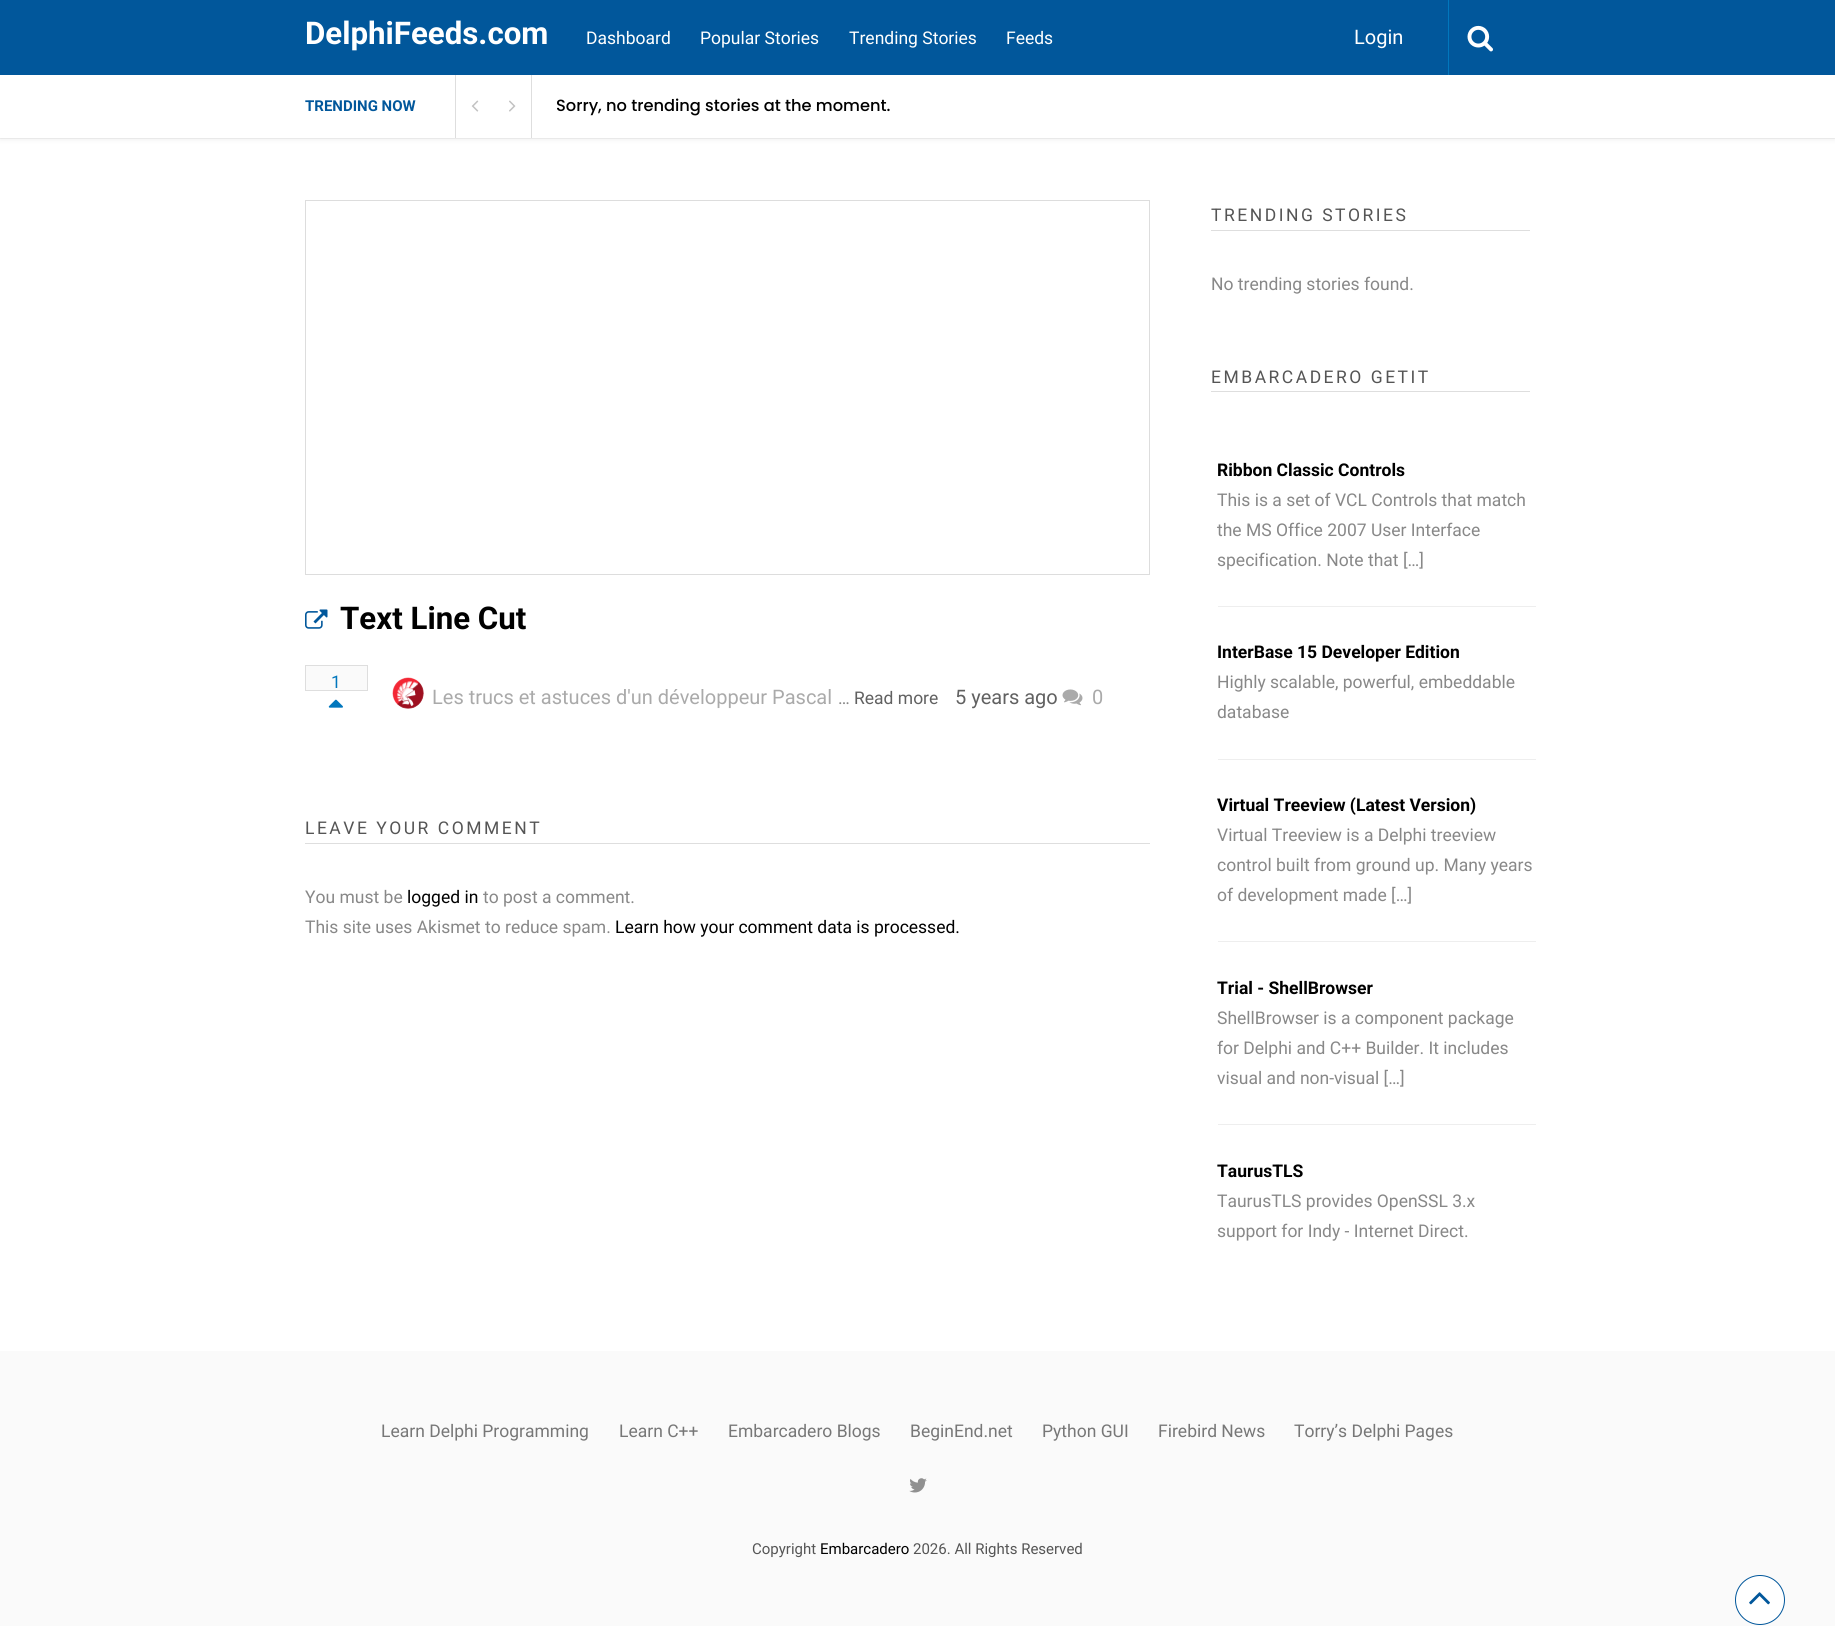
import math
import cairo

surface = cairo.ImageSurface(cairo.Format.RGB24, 1835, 1649)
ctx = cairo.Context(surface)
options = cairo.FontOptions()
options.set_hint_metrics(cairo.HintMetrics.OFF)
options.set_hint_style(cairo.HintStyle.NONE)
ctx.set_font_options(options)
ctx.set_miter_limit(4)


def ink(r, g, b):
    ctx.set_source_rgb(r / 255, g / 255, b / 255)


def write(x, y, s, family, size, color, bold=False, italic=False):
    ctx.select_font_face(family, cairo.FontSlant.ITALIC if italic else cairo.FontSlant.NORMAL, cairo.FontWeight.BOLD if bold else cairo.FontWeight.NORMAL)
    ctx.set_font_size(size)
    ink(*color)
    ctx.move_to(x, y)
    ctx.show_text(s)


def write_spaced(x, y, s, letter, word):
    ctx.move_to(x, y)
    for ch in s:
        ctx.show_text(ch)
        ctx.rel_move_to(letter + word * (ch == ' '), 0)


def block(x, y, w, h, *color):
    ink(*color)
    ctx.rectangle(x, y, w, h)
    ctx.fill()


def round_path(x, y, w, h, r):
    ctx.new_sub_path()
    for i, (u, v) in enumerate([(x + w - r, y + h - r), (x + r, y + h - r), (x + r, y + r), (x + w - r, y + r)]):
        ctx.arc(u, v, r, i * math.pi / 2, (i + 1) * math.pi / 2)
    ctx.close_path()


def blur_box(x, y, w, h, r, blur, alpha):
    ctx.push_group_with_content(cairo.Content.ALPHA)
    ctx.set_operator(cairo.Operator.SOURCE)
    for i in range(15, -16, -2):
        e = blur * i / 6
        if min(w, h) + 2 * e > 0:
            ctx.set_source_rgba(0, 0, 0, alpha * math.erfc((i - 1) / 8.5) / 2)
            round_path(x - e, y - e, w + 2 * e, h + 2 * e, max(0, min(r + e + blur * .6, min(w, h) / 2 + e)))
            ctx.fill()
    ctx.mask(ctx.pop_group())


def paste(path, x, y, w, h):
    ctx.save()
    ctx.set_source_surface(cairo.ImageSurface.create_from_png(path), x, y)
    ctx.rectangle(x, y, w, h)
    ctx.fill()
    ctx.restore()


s1 = dict(family="Roboto", size=31.25, color=(255, 255, 255), bold=True)
s2 = dict(family="Roboto", size=17.5, color=(255, 255, 255))
s3 = dict(family="Roboto", size=20, color=(255, 255, 255))
s4 = dict(family="Roboto", size=15, color=(1, 87, 155), bold=True)
s5 = dict(family="Poppins Medium", size=16.25, color=(0, 0, 0))
s6 = dict(family="Roboto", size=31.25, color=(0, 0, 0), bold=True)
s7 = dict(family="Roboto", size=17.5, color=(2, 119, 189))
s8 = dict(family="Roboto", size=20, color=(170, 170, 170))
s9 = dict(family="Roboto", size=17.5, color=(136, 136, 136))
s10 = dict(family="Roboto", size=17.5, color=(97, 97, 97))
s11 = dict(family="Roboto", size=20, color=(97, 97, 97))
s12 = dict(family="Roboto", size=17.5, color=(0, 0, 0))
s13 = dict(family="Roboto", size=17.5, color=(0, 0, 0), bold=True)
s14 = dict(family="Roboto", size=17.5, color=(119, 119, 119))
s15 = dict(family="Roboto", size=15, color=(85, 85, 85))
s16 = dict(family="Roboto", size=15, color=(0, 0, 0))

ink(255, 255, 255)
ctx.paint()
ink(0, 0, 0)
blur_box(0, 3, 1835, 137, 0, 2.5, 0.06)
ctx.set_source_rgba(0, 0, 0, 0.05)
ctx.rectangle(0, 138, 1835, 1)
ctx.fill()
block(0, 0, 1835, 75, 1, 87, 155)
write(305, 44, "DelphiFeeds.com", **s1)
write(586, 44, "Dashboard", **s2)
write(700, 44, "Popular Stories", **s2)
write(849, 44, "Trending Stories", **s2)
write(1006, 44, "Feeds", **s2)
write(1354, 44, "Login", **s3)
block(1448, 0, 1, 75, 2, 119, 189)
paste("pic1.png", 1467, 25, 26, 27)
block(0, 75, 1835, 63, 255, 255, 255)
write(305, 111, "TRENDING NOW", **s4)
block(455, 75, 1, 63, 222, 222, 222)
block(531, 75, 1, 63, 222, 222, 222)
paste("pic2.png", 471, 100, 8, 12)
paste("pic3.png", 509, 100, 7, 12)
write(556, 111, "Sorry, no trending stories at the moment.", **s5)
ctx.rectangle(305.5, 200.5, 844, 374)
ink(221, 221, 221)
ctx.set_line_width(1)
ctx.stroke()
paste("pic4.png", 305, 609, 23, 20)
write(340, 629, "Text Line Cut", **s6)
ink(250, 250, 250)
ctx.rectangle(305.5, 665.5, 62, 25)
ctx.fill_preserve()
ink(222, 222, 222)
ctx.stroke()
write(331, 688, "1", **s7)
paste("pic5.png", 328, 699, 15, 9)
paste("pic6.png", 392, 677, 32, 32)
write(432, 704, "Les trucs et astuces d'un développeur Pascal", **s8)
write(838, 704, "…", **s9)
write(854, 704, "Read more", **s10)
write(955, 704, "5 years ago", **s11)
paste("pic7.png", 1062, 689, 21, 17)
write(1092, 704, "0", **s8)
block(305, 843, 845, 1, 222, 222, 222)
ctx.set_font_size(17.5)
ink(85, 85, 85)
write_spaced(305, 834, "LEAVE YOUR COMMENT", 2.5, 0)
write(305, 903, "You must be", **s9)
write(407, 903, "logged in", **s12)
write(483, 903, "to post a comment.", **s9)
write(305, 933, "This site uses Akismet to reduce spam.", **s9)
write(615, 933, "Learn how your comment data is processed.", **s12)
block(1211, 230, 319, 1, 222, 222, 222)
ink(85, 85, 85)
write_spaced(1211, 221, "TRENDING STORIES", 2.5, 0)
write(1211, 290, "No trending stories found.", **s9)
block(1211, 391, 319, 1, 222, 222, 222)
ink(85, 85, 85)
write_spaced(1211, 383, "EMBARCADERO GETIT", 2.5, 0)
block(1218, 606, 318, 1, 238, 238, 238)
write(1217, 476, "Ribbon Classic Controls", **s13)
write(1217, 506, "This is a set of VCL Controls that match", **s9)
write(1217, 536, "the MS Office 2007 User Interface", **s9)
write(1217, 566, "specification. Note that […]", **s9)
block(1218, 759, 318, 1, 238, 238, 238)
write(1217, 658, "InterBase 15 Developer Edition", **s13)
write(1217, 688, "Highly scalable, powerful, embeddable", **s9)
write(1217, 718, "database", **s9)
block(1218, 941, 318, 1, 238, 238, 238)
write(1217, 811, "Virtual Treeview (Latest Version)", **s13)
write(1217, 841, "Virtual Treeview is a Delphi treeview", **s9)
write(1217, 871, "control built from ground up. Many years", **s9)
write(1217, 901, "of development made […]", **s9)
block(1218, 1124, 318, 1, 238, 238, 238)
write(1217, 994, "Trial - ShellBrowser", **s13)
write(1217, 1024, "ShellBrowser is a component package", **s9)
write(1217, 1054, "for Delphi and C++ Builder. It includes", **s9)
write(1217, 1084, "visual and non-visual […]", **s9)
write(1217, 1177, "TaurusTLS", **s13)
write(1217, 1207, "TaurusTLS provides OpenSSL 3.x", **s9)
write(1217, 1237, "support for Indy - Internet Direct.", **s9)
block(0, 1351, 1835, 275, 250, 250, 250)
write(381, 1437, "Learn Delphi Programming", **s14)
write(619, 1437, "Learn C++", **s14)
write(728, 1437, "Embarcadero Blogs", **s14)
write(910, 1437, "BeginEnd.net", **s14)
write(1042, 1437, "Python GUI", **s14)
write(1158, 1437, "Firebird News", **s14)
write(1294, 1437, "Torry’s Delphi Pages", **s14)
paste("pic8.png", 909, 1478, 18, 15)
write(752, 1554, "Copyright", **s15)
write(820, 1554, "Embarcadero", **s16)
write(913, 1554, "2026. All Rights Reserved", **s15)
ink(255, 255, 255)
ctx.new_path()
ctx.arc(1760, 1600, 24.5, 0, 2 * math.pi)
ctx.fill_preserve()
ink(1, 87, 155)
ctx.stroke()
paste("pic9.png", 1749, 1592, 21, 13)
surface.write_to_png("screenshot.png")
